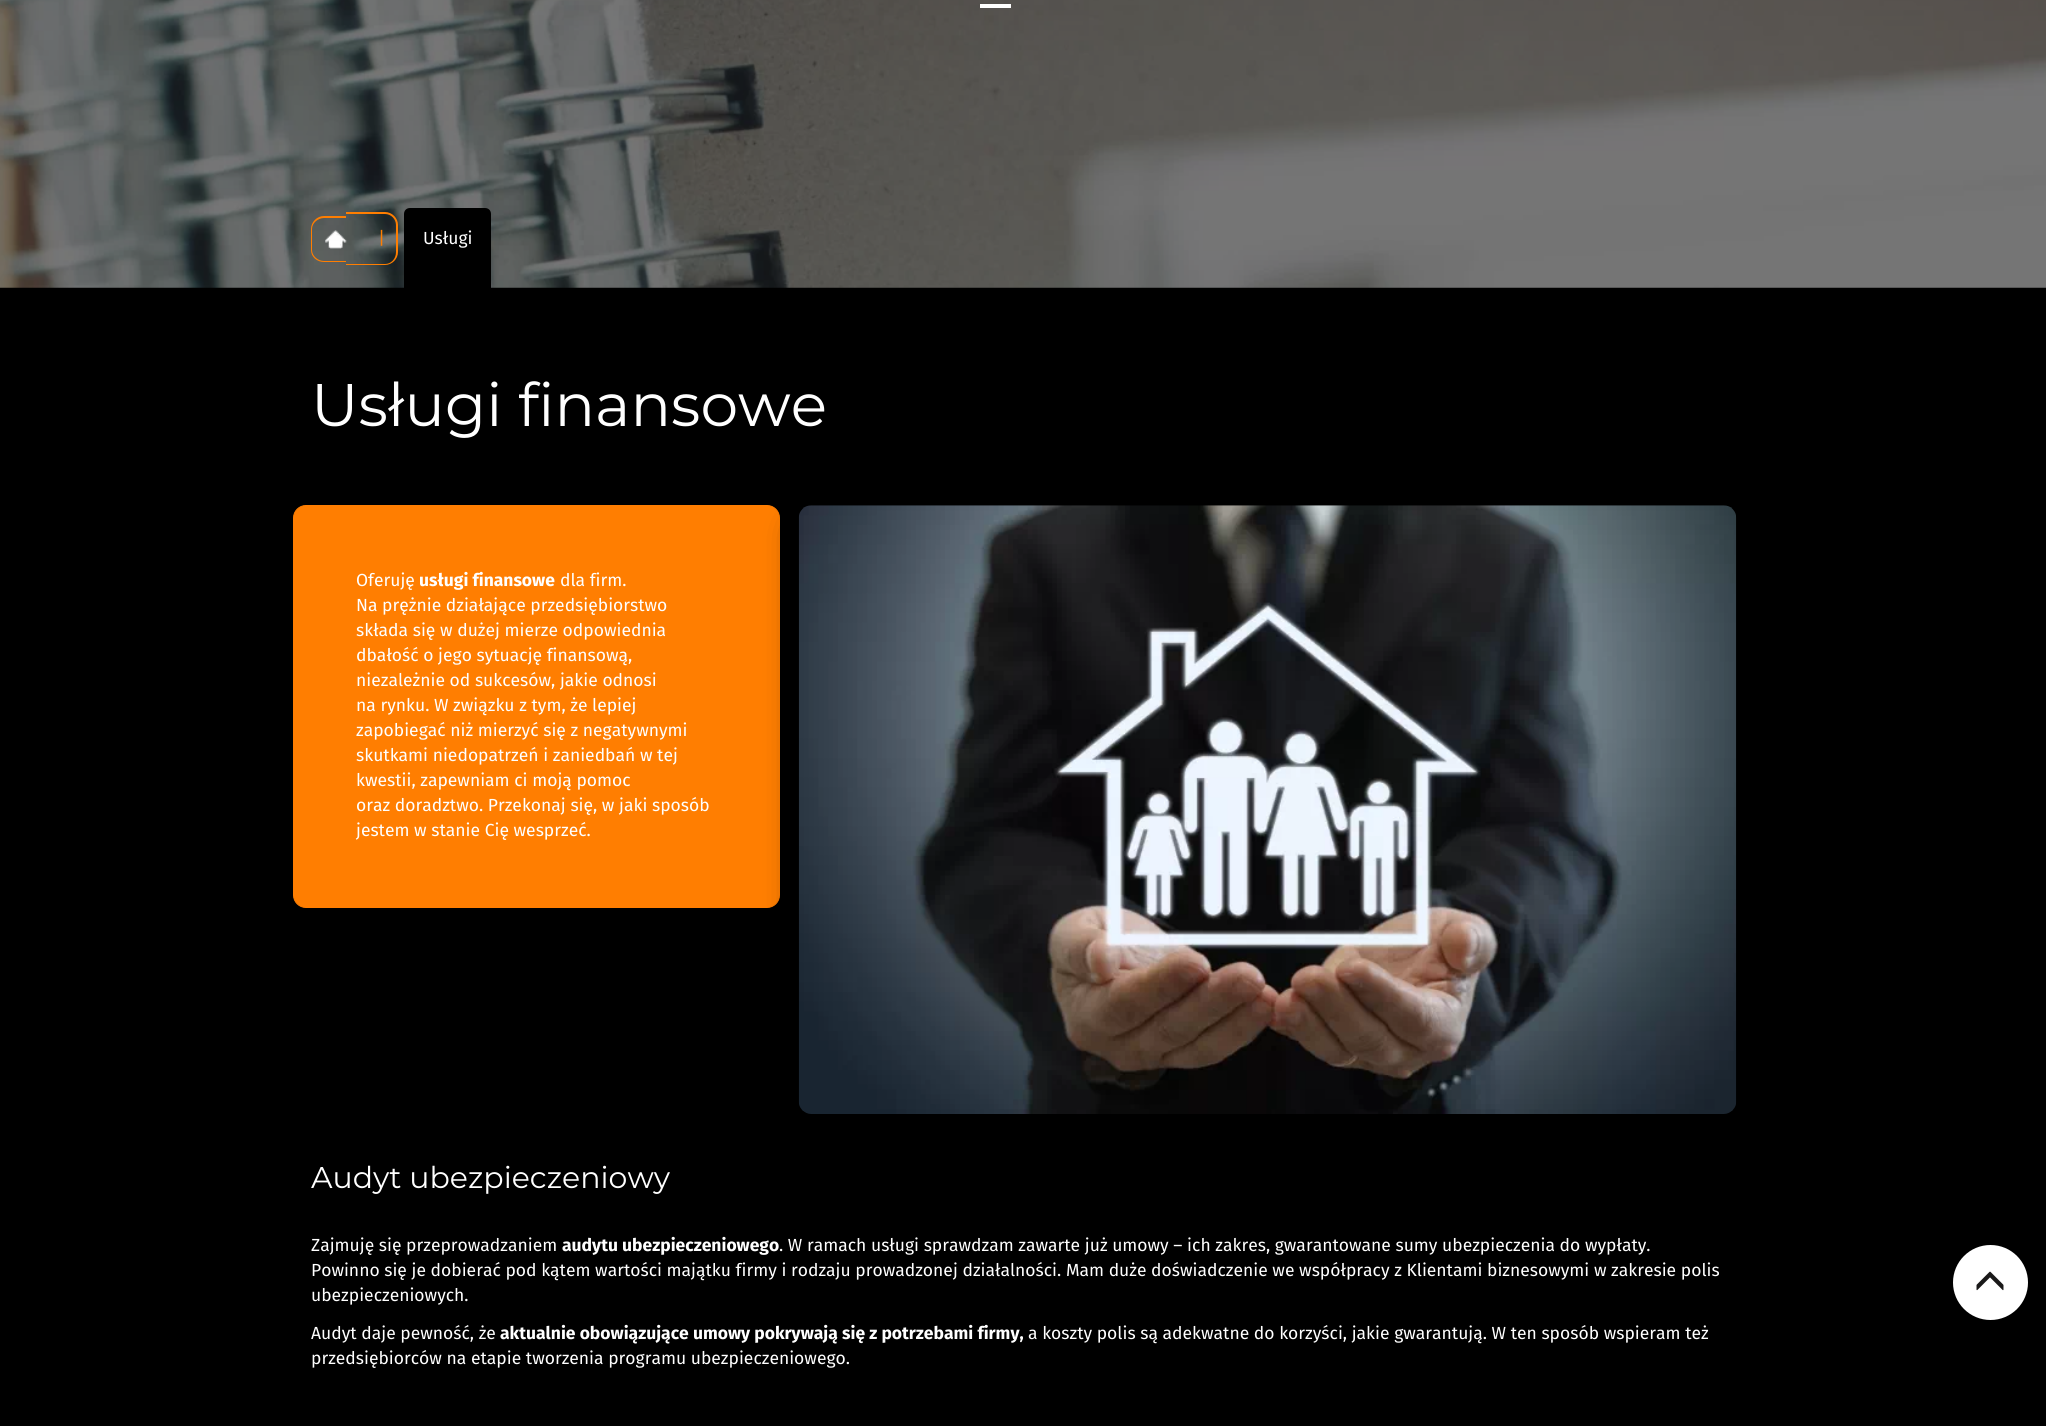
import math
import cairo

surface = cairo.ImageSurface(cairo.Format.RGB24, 2046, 1426)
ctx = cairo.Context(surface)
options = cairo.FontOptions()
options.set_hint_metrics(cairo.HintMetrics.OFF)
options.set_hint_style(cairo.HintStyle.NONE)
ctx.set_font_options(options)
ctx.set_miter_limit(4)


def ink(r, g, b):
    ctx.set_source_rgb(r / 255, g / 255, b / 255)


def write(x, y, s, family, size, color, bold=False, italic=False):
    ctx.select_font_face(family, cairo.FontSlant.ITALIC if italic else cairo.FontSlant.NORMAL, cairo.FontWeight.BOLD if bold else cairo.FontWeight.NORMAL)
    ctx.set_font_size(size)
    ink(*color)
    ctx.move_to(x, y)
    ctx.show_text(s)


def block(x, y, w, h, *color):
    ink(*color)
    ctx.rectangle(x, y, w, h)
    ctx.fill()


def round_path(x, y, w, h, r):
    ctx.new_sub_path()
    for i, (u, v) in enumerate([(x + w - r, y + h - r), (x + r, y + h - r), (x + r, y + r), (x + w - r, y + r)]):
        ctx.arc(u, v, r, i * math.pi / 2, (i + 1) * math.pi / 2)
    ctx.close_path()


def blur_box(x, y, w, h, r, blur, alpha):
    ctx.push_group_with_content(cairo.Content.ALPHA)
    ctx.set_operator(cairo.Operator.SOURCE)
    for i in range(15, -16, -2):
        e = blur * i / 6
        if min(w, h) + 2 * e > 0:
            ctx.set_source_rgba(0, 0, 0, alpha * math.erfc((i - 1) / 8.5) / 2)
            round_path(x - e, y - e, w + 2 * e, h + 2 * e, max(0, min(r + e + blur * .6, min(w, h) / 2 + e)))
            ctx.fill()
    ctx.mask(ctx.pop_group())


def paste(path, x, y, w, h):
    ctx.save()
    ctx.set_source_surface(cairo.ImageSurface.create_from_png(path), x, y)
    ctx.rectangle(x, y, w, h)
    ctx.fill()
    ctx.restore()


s1 = dict(family="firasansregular", size=17.5, color=(255, 126, 1))
s2 = dict(family="firasansregular", size=17.5, color=(255, 255, 255))
s3 = dict(family="Montserrat", size=60, color=(255, 255, 255))
s4 = dict(family="Fira Sans", size=17.5, color=(255, 255, 255), bold=True)
s5 = dict(family="Montserrat", size=30, color=(255, 255, 255))

ink(0, 0, 0)
ctx.paint()
paste("pic1.png", 0, 0, 2046, 288)
block(980, 4, 31, 4, 255, 255, 255)
ink(255, 126, 1)
ctx.set_fill_rule(cairo.FillRule.EVEN_ODD)
ctx.new_path()
ctx.move_to(324, 216)
ctx.line_to(346, 216)
ctx.line_to(346, 262)
ctx.line_to(324, 262)
ctx.curve_to(317, 262, 311, 257, 311, 250)
ctx.line_to(311, 229)
ctx.curve_to(311, 222, 317, 216, 324, 216)
ctx.close_path()
ctx.move_to(324, 218)
ctx.line_to(346, 218)
ctx.line_to(346, 261)
ctx.line_to(324, 261)
ctx.curve_to(318, 261, 312, 256, 312, 250)
ctx.line_to(312, 229)
ctx.curve_to(312, 223, 318, 218, 324, 218)
ctx.close_path()
ctx.fill()
ctx.new_path()
ctx.move_to(346, 212)
ctx.line_to(385, 212)
ctx.curve_to(392, 212, 398, 218, 398, 225)
ctx.line_to(398, 252)
ctx.curve_to(398, 259, 392, 265, 385, 265)
ctx.line_to(346, 265)
ctx.close_path()
ctx.move_to(346, 214)
ctx.line_to(385, 214)
ctx.curve_to(391, 214, 396, 219, 396, 225)
ctx.line_to(396, 252)
ctx.curve_to(396, 259, 391, 264, 385, 264)
ctx.line_to(346, 264)
ctx.close_path()
ctx.fill()
paste("pic2.png", 325, 230, 22, 19)
write(378, 244, "|", **s1)
ink(0, 0, 0)
ctx.new_path()
ctx.move_to(410, 208)
ctx.line_to(485, 208)
ctx.curve_to(488.5, 208, 491, 210.5, 491, 214)
ctx.line_to(491, 289)
ctx.line_to(404, 289)
ctx.line_to(404, 214)
ctx.curve_to(404, 210.5, 406.5, 208, 410, 208)
ctx.close_path()
ctx.fill()
write(423, 244, "Usługi", **s2)
write(311, 426, "Usługi finansowe", **s3)
ink(255, 126, 1)
round_path(293.5, 505.5, 486, 402, 12.5)
ctx.fill_preserve()
ctx.set_line_width(1)
ctx.stroke()
write(356, 586, "Oferuję", **s2)
write(419, 586, "usługi finansowe", **s4)
write(560, 586, "dla firm.", **s2)
write(356, 611, "Na prężnie działające przedsiębiorstwo", **s2)
write(356, 636, "składa się w dużej mierze odpowiednia", **s2)
write(356, 661, "dbałość o jego sytuację finansową,", **s2)
write(356, 686, "niezależnie od sukcesów, jakie odnosi", **s2)
write(356, 711, "na rynku. W związku z tym, że lepiej", **s2)
write(356, 736, "zapobiegać niż mierzyć się z negatywnymi", **s2)
write(356, 761, "skutkami niedopatrzeń i zaniedbań w tej", **s2)
write(356, 786, "kwestii, zapewniam ci moją pomoc", **s2)
write(356, 811, "oraz doradztwo. Przekonaj się, w jaki sposób", **s2)
write(356, 836, "jestem w stanie Cię wesprzeć.", **s2)
ink(0, 0, 0)
blur_box(799, 520, 937, 609, 13, 15, 0.75)
paste("pic3.png", 798, 505, 939, 609)
write(311, 1188, "Audyt ubezpieczeniowy", **s5)
write(311, 1251, "Zajmuję się przeprowadzaniem", **s2)
write(562, 1251, "audytu ubezpieczeniowego", **s4)
write(779, 1251, ". W ramach usługi sprawdzam zawarte już umowy – ich zakres, gwarantowane sumy ubezpieczenia do wypłaty.", **s2)
write(311, 1276, "Powinno się je dobierać pod kątem wartości majątku firmy i rodzaju prowadzonej działalności. Mam duże doświadczenie we współpracy z Klientami biznesowymi w zakresie polis", **s2)
write(311, 1301, "ubezpieczeniowych.", **s2)
write(311, 1339, "Audyt daje pewność, że", **s2)
write(500, 1339, "aktualnie obowiązujące umowy pokrywają się z potrzebami firmy,", **s4)
write(1028, 1339, "a koszty polis są adekwatne do korzyści, jakie gwarantują. W ten sposób wspieram też", **s2)
write(311, 1364, "przedsiębiorców na etapie tworzenia programu ubezpieczeniowego.", **s2)
ctx.new_path()
ctx.arc(1990.5, 1282.5, 37.5, 0, 2 * math.pi)
ctx.fill()
paste("pic4.png", 1976, 1271, 28, 20)
surface.write_to_png("screenshot.png")
